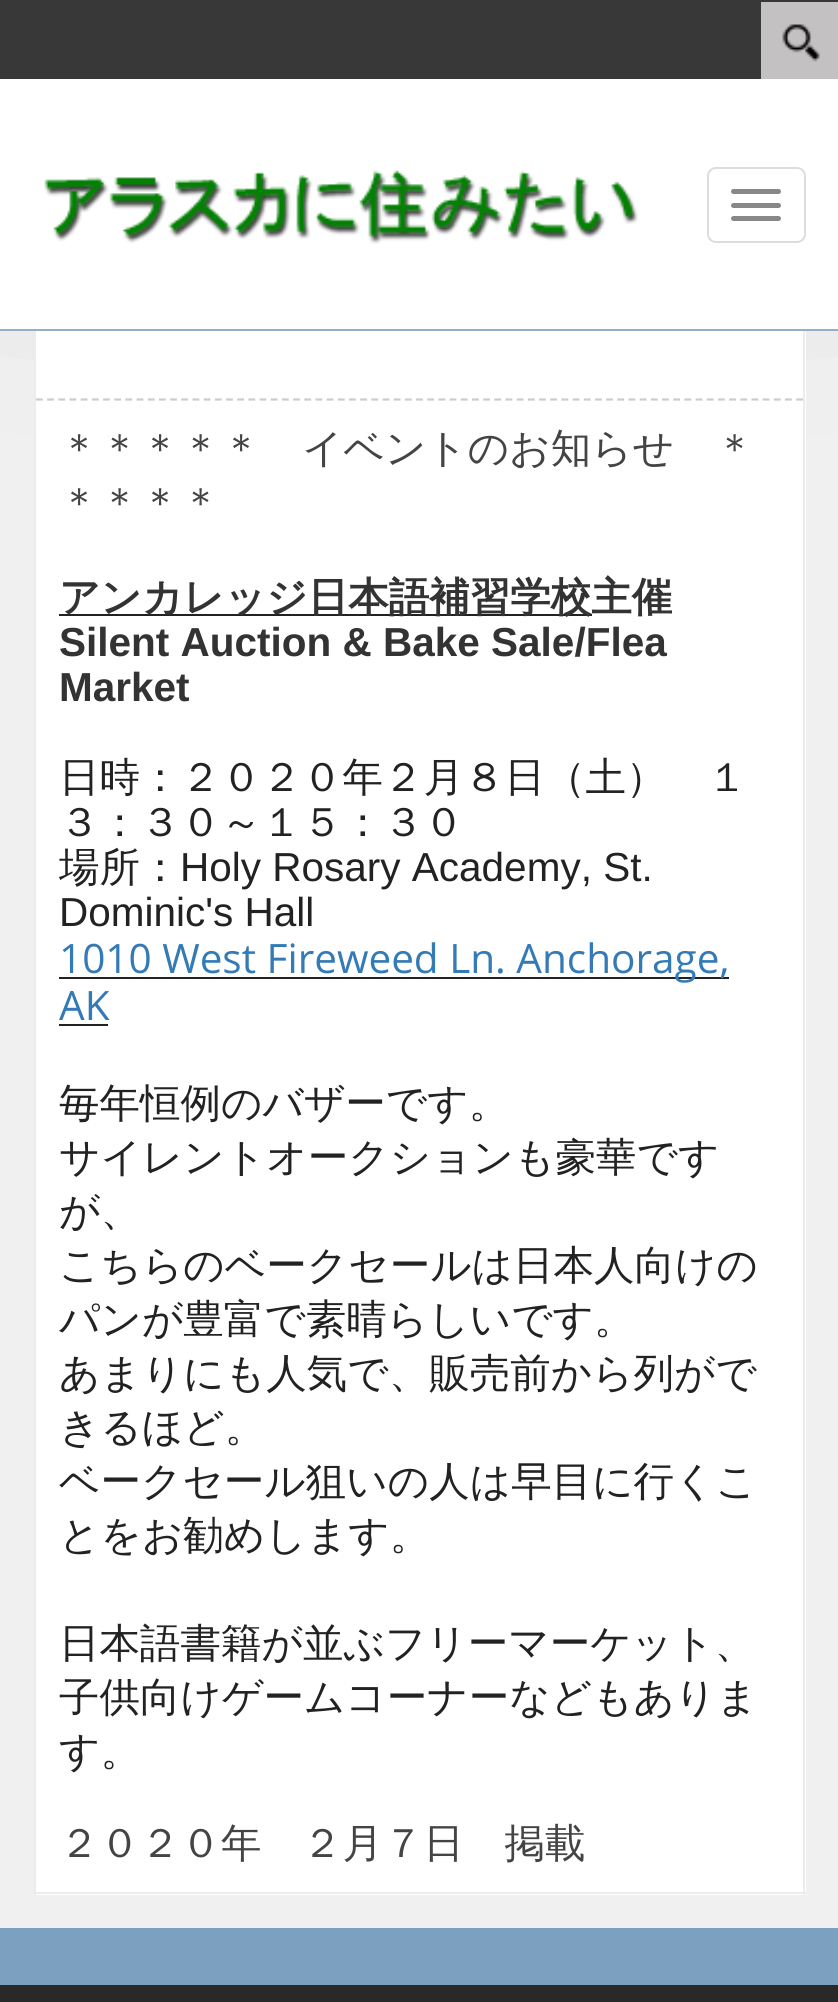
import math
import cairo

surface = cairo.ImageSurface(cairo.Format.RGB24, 838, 2002)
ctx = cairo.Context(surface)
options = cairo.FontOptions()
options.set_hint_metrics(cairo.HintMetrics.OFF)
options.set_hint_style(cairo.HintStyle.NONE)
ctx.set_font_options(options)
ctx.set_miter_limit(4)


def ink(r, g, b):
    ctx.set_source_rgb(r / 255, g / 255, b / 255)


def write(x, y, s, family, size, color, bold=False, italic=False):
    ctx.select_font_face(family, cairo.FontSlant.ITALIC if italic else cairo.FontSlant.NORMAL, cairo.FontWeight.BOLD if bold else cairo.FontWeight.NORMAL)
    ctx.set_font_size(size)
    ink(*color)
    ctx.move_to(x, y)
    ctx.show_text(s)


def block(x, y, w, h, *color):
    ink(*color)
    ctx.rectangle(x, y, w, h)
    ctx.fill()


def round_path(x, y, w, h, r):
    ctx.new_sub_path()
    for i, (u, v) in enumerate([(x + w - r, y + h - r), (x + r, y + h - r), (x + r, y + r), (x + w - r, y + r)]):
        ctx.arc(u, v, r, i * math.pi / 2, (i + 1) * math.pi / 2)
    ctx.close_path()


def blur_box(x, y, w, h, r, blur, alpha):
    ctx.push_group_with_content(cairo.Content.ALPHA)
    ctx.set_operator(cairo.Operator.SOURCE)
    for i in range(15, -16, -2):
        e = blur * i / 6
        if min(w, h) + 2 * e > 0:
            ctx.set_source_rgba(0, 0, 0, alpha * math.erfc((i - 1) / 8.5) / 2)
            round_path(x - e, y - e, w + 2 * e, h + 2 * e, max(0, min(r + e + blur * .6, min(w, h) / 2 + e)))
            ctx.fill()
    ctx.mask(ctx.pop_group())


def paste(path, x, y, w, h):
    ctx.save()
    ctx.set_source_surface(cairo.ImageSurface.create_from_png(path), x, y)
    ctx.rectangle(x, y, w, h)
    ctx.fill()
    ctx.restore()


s1 = dict(family="WenQuanYi Zen Hei Medium", size=40.5, color=(68, 68, 68))
s2 = dict(family="WenQuanYi Zen Hei", size=40.5, color=(51, 51, 51), bold=True)
s3 = dict(family="Liberation Sans", size=40.5, color=(51, 51, 51), bold=True)
s4 = dict(family="WenQuanYi Zen Hei Medium", size=40.5, color=(34, 34, 34))
s5 = dict(family="Liberation Sans", size=40.5, color=(34, 34, 34))
s6 = dict(family="Open Sans", size=40.5, color=(51, 122, 183))

ink(240, 240, 240)
ctx.paint()
ink(202, 202, 202)
blur_box(2, 113, 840, 78, 0, 112.5, 1)
block(0, 0, 838, 79, 56, 56, 56)
block(761, 2, 77, 77, 195, 193, 193)
paste("pic1.png", 782, 24, 38, 38)
block(0, 79, 838, 250, 255, 255, 255)
block(0, 329, 838, 2, 145, 175, 202)
paste("pic2.png", 44, 170, 594, 74)
round_path(708, 168, 97, 74, 8)
ink(221, 221, 221)
ctx.stroke()
ink(136, 136, 136)
round_path(731, 189, 50, 5, 2.5)
ctx.fill()
round_path(731, 203, 50, 5, 2.5)
ctx.fill()
round_path(731, 216, 50, 5, 2.5)
ctx.fill()
block(36, 331, 770, 1564, 255, 255, 255)
block(803, 331, 2, 1564, 236, 236, 236)
block(34, 1892, 772, 2, 236, 236, 236)
block(34, 350, 2, 1545, 236, 236, 236)
ctx.new_path()
ctx.move_to(36, 399.5)
ctx.line_to(803, 399.5)
ink(204, 204, 204)
ctx.set_line_width(2.2)
ctx.set_dash([6.75, 4.43])
ctx.stroke()
write(59, 462, "＊＊＊＊＊　イベントのお知らせ　＊", **s1)
write(59, 516, "＊＊＊＊", **s1)
block(59, 614, 533, 2, 34, 34, 34)
write(59, 611, "アンカレッジ日本語補習学校主催", **s2)
write(59, 656, "Silent Auction & Bake Sale/Flea", **s3)
write(59, 701, "Market", **s3)
write(59, 791, "日時：２０２０年２月８日（土）　１", **s4)
write(59, 836, "３：３０～１５：３０", **s4)
write(59, 881, "場所：", **s4)
write(180, 881, "Holy Rosary Academy, St.", **s5)
write(59, 926, "Dominic's Hall", **s5)
block(59, 977, 670, 2, 34, 34, 34)
write(59, 973, "1010 West Fireweed Ln. Anchorage,", **s6)
write(59, 1020, "AK", **s6)
block(59, 1024, 49, 2, 34, 34, 34)
write(59, 1117, "毎年恒例のバザーです。", **s4)
write(59, 1171, "サイレントオークションも豪華です", **s4)
write(59, 1225, "が、", **s4)
write(59, 1279, "こちらのベークセールは日本人向けの", **s4)
write(59, 1333, "パンが豊富で素晴らしいです。", **s4)
write(59, 1387, "あまりにも人気で、販売前から列がで", **s4)
write(59, 1441, "きるほど。", **s4)
write(59, 1495, "ベークセール狙いの人は早目に行くこ", **s4)
write(59, 1549, "とをお勧めします。", **s4)
write(59, 1657, "日本語書籍が並ぶフリーマーケット、", **s4)
write(59, 1711, "子供向けゲームコーナーなどもありま", **s4)
write(59, 1765, "す。", **s4)
write(59, 1857, "２０２０年　２月７日　掲載", **s1)
block(0, 1985, 838, 17, 41, 41, 41)
block(0, 1928, 838, 57, 124, 160, 192)
surface.write_to_png("screenshot.png")
